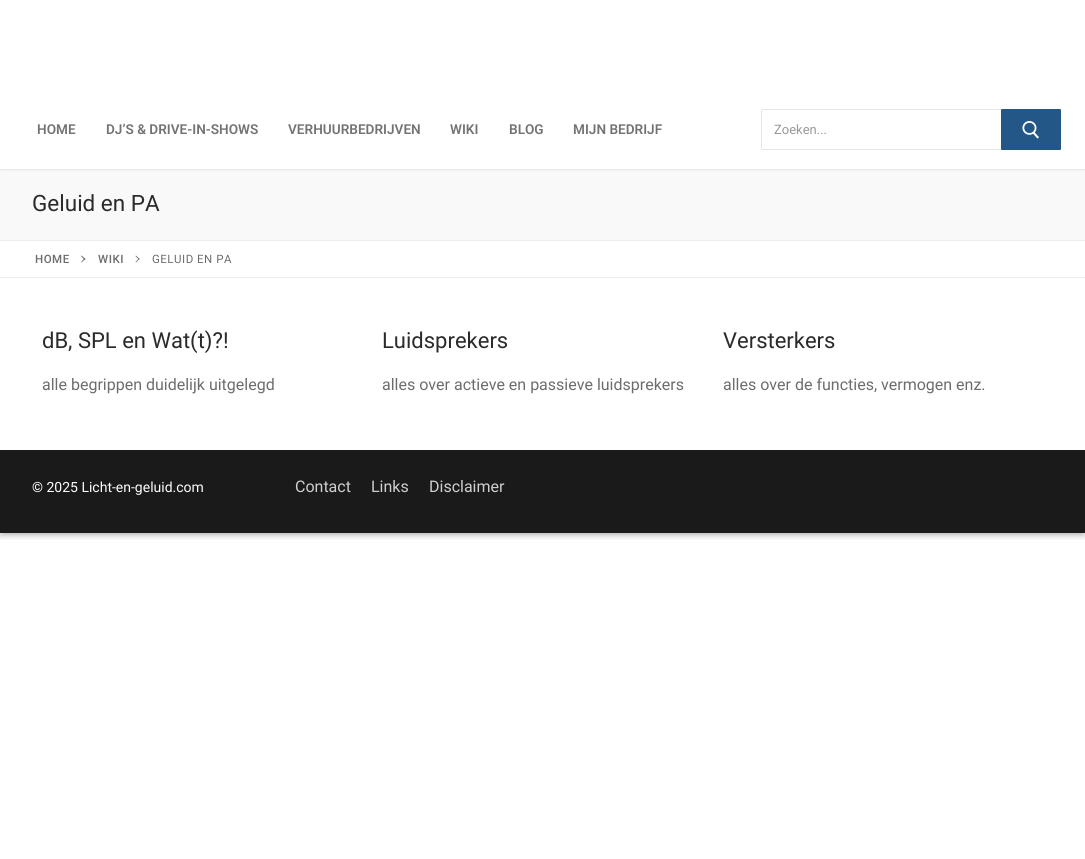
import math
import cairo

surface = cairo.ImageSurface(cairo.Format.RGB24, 1085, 859)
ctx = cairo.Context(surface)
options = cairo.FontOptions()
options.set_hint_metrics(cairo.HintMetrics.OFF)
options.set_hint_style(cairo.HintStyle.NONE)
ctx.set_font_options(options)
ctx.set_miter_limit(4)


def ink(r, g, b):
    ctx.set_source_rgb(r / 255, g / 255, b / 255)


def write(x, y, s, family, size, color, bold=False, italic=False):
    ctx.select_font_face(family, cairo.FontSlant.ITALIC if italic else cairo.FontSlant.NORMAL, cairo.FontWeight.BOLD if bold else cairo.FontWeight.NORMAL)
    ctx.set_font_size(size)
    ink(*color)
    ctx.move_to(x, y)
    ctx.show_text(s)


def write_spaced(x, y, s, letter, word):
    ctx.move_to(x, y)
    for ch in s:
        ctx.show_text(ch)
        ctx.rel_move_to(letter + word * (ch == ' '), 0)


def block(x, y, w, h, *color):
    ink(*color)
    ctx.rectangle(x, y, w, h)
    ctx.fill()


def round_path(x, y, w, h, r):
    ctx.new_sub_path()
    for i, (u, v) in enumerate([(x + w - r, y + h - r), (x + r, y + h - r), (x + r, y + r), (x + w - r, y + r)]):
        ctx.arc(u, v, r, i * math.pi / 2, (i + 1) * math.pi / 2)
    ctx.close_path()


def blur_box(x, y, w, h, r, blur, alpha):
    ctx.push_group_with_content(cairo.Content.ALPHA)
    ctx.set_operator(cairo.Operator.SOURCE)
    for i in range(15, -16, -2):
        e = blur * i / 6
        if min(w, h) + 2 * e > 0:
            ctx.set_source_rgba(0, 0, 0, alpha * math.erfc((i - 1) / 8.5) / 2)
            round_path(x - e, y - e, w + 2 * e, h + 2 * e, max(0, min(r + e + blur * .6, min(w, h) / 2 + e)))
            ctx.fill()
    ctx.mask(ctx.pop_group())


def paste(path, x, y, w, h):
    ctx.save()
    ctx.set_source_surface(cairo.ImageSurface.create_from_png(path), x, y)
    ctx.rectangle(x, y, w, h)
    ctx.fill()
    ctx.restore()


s1 = dict(family="Roboto SemiBold", size=13.6, color=(115, 115, 115))
s2 = dict(family="Roboto", size=13, color=(153, 153, 153))
s3 = dict(family="Roboto", size=22.5, color=(43, 43, 43))
s4 = dict(family="Roboto", size=22, color=(43, 43, 43))
s5 = dict(family="Roboto", size=16, color=(109, 109, 109))
s6 = dict(family="Roboto", size=14, color=(253, 253, 253))
s7 = dict(family="Roboto", size=16, color=(207, 207, 207))

ink(255, 255, 255)
ctx.paint()
ctx.save()
ctx.rectangle(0, 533, 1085, 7)
ctx.clip()
ink(0, 0, 0)
blur_box(0, 3, 1085, 533, 0, 3, 0.23)
ctx.restore()
ctx.save()
ctx.rectangle(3, 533, 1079, 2)
ctx.clip()
ink(0, 0, 0)
blur_box(4, 7, 1077, 525, 0, 3, 0.16)
ctx.restore()
block(0, 169, 1085, 71, 249, 249, 249)
ink(225, 229, 234)
blur_box(0, 91, 1085, 79, 0, 1, 1)
block(0, 90, 1085, 79, 255, 255, 255)
write(37, 134, "HOME", **s1)
write(106, 134, "DJ’S & DRIVE-IN-SHOWS", **s1)
write(288, 134, "VERHUURBEDRIJVEN", **s1)
write(450, 134, "WIKI", **s1)
write(509, 134, "BLOG", **s1)
write(573, 134, "MIJN BEDRIJF", **s1)
round_path(761.5, 109.5, 279, 40, 1.5)
ink(229, 229, 229)
ctx.set_line_width(1)
ctx.stroke()
write(774, 134, "Zoeken...", **s2)
ink(35, 87, 135)
round_path(1001, 109, 60, 41, 1)
ctx.fill()
paste("pic1.png", 1022, 121, 17, 18)
block(0, 240, 1085, 1, 234, 236, 238)
write(32, 211, "Geluid en PA", **s3)
block(0, 277, 1085, 1, 234, 236, 238)
ctx.select_font_face("Roboto Medium")
ctx.set_font_size(11.5)
ink(109, 109, 109)
write_spaced(35, 263, "HOME", 0.5, 0)
ctx.new_path()
ctx.move_to(85.5, 259)
ctx.line_to(81.5, 262.5)
ctx.line_to(81, 262)
ctx.line_to(84.5, 258.5)
ctx.close_path()
ctx.fill()
ctx.new_path()
ctx.move_to(85.5, 259)
ctx.line_to(84.5, 260)
ctx.line_to(81, 256)
ctx.line_to(81.5, 255.5)
ctx.close_path()
ctx.fill()
write_spaced(98, 263, "WIKI", 0.5, 0)
ctx.new_path()
ctx.move_to(139.5, 259)
ctx.line_to(136, 262.5)
ctx.line_to(135.5, 262)
ctx.line_to(139, 258.5)
ctx.close_path()
ctx.fill()
ctx.new_path()
ctx.move_to(139.5, 259)
ctx.line_to(139, 260)
ctx.line_to(135.5, 256)
ctx.line_to(136, 255.5)
ctx.close_path()
ctx.fill()
ctx.select_font_face("Roboto")
write_spaced(152, 263, "GELUID EN PA", 0.5, 0)
write(42, 348, "dB, SPL en Wat(t)?!", **s4)
write(42, 390, "alle begrippen duidelijk uitgelegd", **s5)
write(382, 348, "Luidsprekers", **s4)
write(382, 390, "alles over actieve en passieve luidsprekers", **s5)
write(723, 348, "Versterkers", **s4)
write(723, 390, "alles over de functies, vermogen enz.", **s5)
block(0, 450, 1085, 83, 26, 26, 26)
write(32, 492, "© 2025 Licht-en-geluid.com", **s6)
write(295, 492, "Contact", **s7)
write(371, 492, "Links", **s7)
write(429, 492, "Disclaimer", **s7)
surface.write_to_png("screenshot.png")
